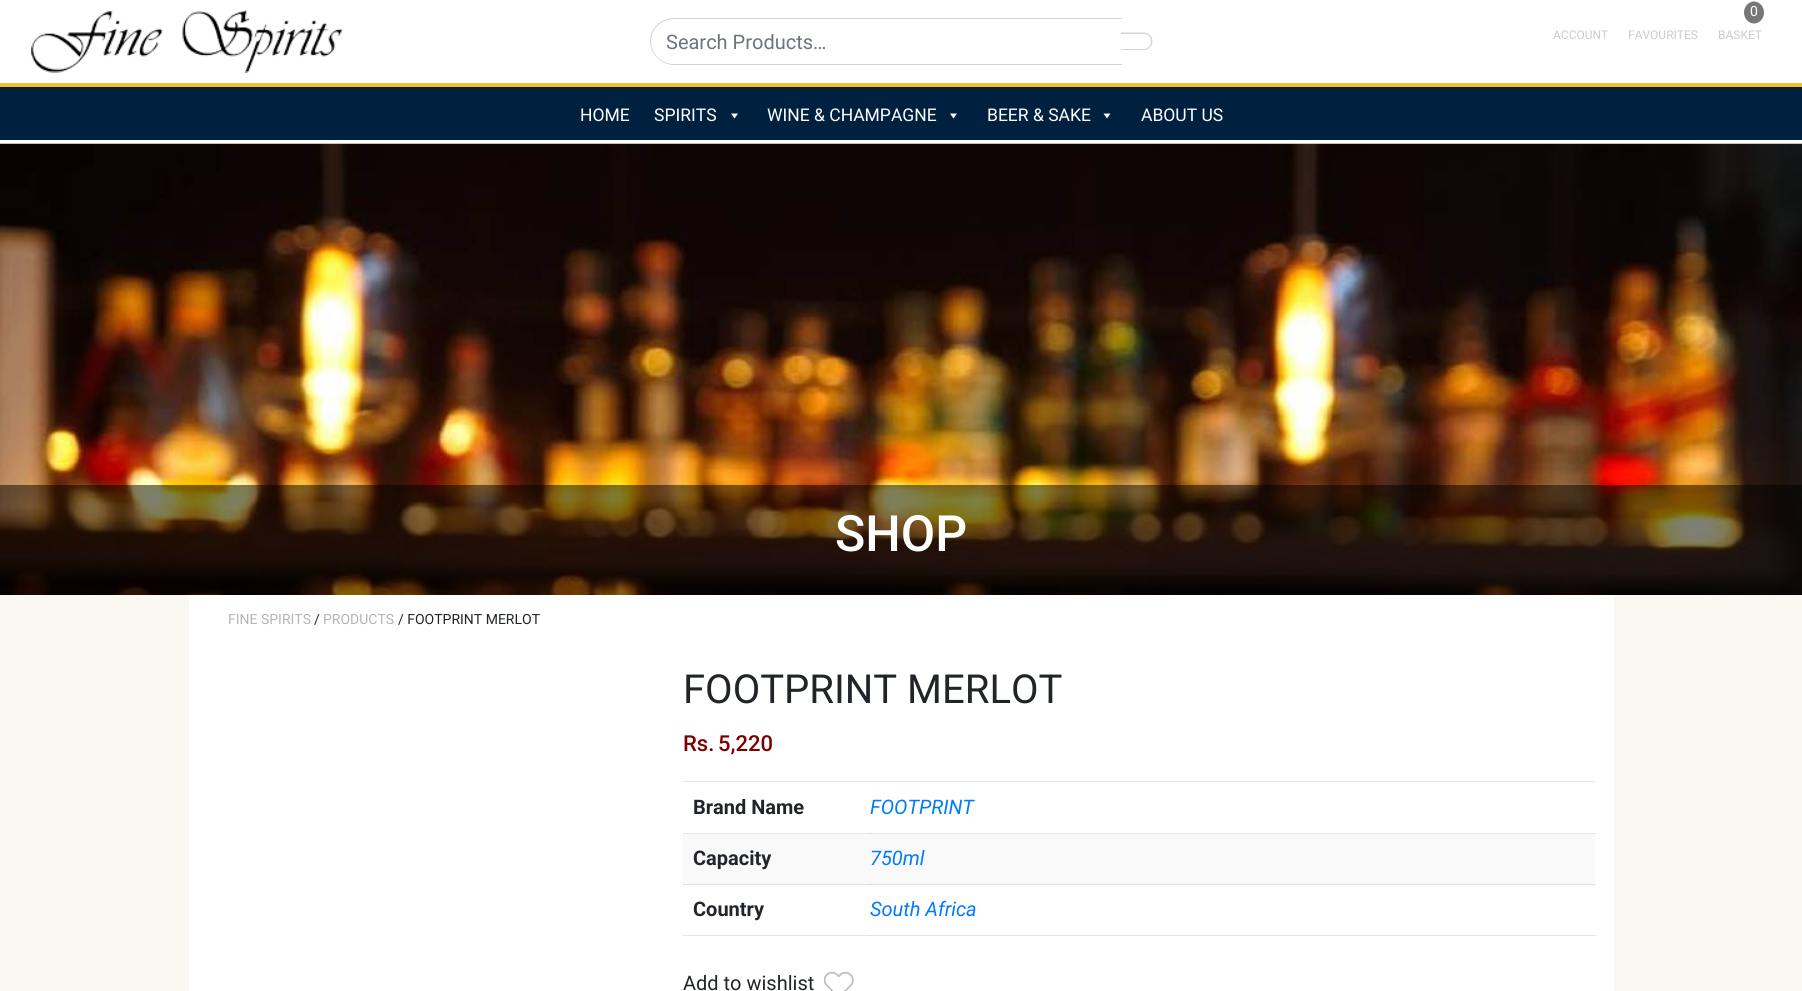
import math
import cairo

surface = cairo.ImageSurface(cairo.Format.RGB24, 1802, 991)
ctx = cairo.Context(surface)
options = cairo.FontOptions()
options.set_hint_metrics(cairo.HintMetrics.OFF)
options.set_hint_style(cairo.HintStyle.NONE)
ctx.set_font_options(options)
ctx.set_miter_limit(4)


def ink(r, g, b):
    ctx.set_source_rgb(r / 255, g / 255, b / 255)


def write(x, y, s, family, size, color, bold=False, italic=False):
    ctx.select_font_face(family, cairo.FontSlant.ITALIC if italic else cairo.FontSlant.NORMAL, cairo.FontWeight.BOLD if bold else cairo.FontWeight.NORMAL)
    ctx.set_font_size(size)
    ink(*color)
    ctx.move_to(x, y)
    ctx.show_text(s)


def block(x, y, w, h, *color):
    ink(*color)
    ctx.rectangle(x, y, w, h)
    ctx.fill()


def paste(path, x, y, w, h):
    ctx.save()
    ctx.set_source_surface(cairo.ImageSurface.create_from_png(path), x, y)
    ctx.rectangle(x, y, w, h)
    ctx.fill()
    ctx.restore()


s1 = dict(family="Roboto", size=20, color=(108, 117, 125))
s2 = dict(family="Roboto", size=12, color=(204, 204, 204))
s3 = dict(family="Roboto", size=14, color=(255, 255, 255))
s4 = dict(family="Roboto", size=17.5, color=(255, 255, 255))
s5 = dict(family="Roboto Medium", size=50, color=(255, 255, 255))
s6 = dict(family="Roboto", size=14, color=(181, 181, 181))
s7 = dict(family="Roboto", size=14, color=(33, 37, 41))
s8 = dict(family="Roboto", size=40, color=(33, 37, 41))
s9 = dict(family="Roboto Medium", size=22, color=(125, 0, 0))
s10 = dict(family="Roboto", size=20, color=(33, 37, 41), bold=True)
s11 = dict(family="Roboto", size=20, color=(0, 123, 255), italic=True)
s12 = dict(family="Roboto", size=20, color=(33, 37, 41))

ink(255, 255, 255)
ctx.paint()
paste("pic1.png", 31, 10, 312, 63)
ink(206, 212, 218)
ctx.set_fill_rule(cairo.FillRule.EVEN_ODD)
ctx.new_path()
ctx.move_to(674, 18)
ctx.line_to(1122, 18)
ctx.line_to(1122, 65)
ctx.line_to(674, 65)
ctx.curve_to(661, 65, 650, 54, 650, 41)
ctx.curve_to(650, 28, 661, 18, 674, 18)
ctx.close_path()
ctx.move_to(674, 19)
ctx.line_to(1122, 19)
ctx.line_to(1122, 64)
ctx.line_to(674, 64)
ctx.curve_to(661, 64, 651, 54, 651, 41)
ctx.curve_to(651, 29, 661, 19, 674, 19)
ctx.close_path()
ctx.fill()
write(666, 49, "Search Products…", **s1)
ink(206, 212, 218)
ctx.new_path()
ctx.move_to(1121, 32.5)
ctx.line_to(1144, 32.5)
ctx.curve_to(1148.5, 32.5, 1152.5, 36.5, 1152.5, 41)
ctx.curve_to(1152.5, 46, 1148.5, 50, 1144, 50)
ctx.line_to(1121, 50)
ctx.close_path()
ctx.move_to(1121, 34)
ctx.line_to(1144, 34)
ctx.curve_to(1148, 34, 1151, 37, 1151, 41)
ctx.curve_to(1151, 45.5, 1148, 49, 1144, 49)
ctx.line_to(1121, 49)
ctx.close_path()
ctx.fill()
write(1553, 39, "ACCOUNT", **s2)
write(1628, 39, "FAVOURITES", **s2)
ink(119, 119, 119)
ctx.new_path()
ctx.move_to(1754, 1.5)
ctx.curve_to(1759.5, 1.5, 1764, 6.5, 1764, 12.5)
ctx.curve_to(1764, 18.5, 1759.5, 23.5, 1754, 23.5)
ctx.curve_to(1748.5, 23.5, 1744, 18.5, 1744, 12.5)
ctx.curve_to(1744, 6.5, 1748.5, 1.5, 1754, 1.5)
ctx.close_path()
ctx.fill()
write(1750, 16, "0", **s3)
write(1718, 39, "BASKET", **s2)
block(0, 87, 1802, 53, 0, 32, 64)
block(0, 83, 1802, 4, 242, 192, 35)
write(580, 121, "HOME", **s4)
write(654, 121, "SPIRITS", **s4)
ctx.set_fill_rule(cairo.FillRule.WINDING)
ctx.new_path()
ctx.move_to(738, 113.5)
ctx.line_to(734.5, 118.5)
ctx.line_to(731, 113.5)
ctx.close_path()
ctx.fill()
write(767, 121, "WINE & CHAMPAGNE", **s4)
ctx.new_path()
ctx.move_to(957, 113.5)
ctx.line_to(953.5, 118.5)
ctx.line_to(950, 113.5)
ctx.close_path()
ctx.fill()
write(987, 121, "BEER & SAKE", **s4)
ctx.new_path()
ctx.move_to(1110.5, 113.5)
ctx.line_to(1107, 118.5)
ctx.line_to(1103.5, 113.5)
ctx.close_path()
ctx.fill()
write(1141, 121, "ABOUT US", **s4)
paste("pic2.png", 0, 143, 1802, 452)
ctx.set_source_rgba(0, 0, 0, 0.5)
ctx.rectangle(0, 485, 1802, 110)
ctx.fill()
write(835, 551, "SHOP", **s5)
block(0, 595, 1802, 396, 251, 248, 242)
block(189, 595, 1425, 396, 255, 255, 255)
block(683, 833, 913, 1, 230, 230, 230)
block(1595, 884, 1, 1, 230, 230, 230)
block(683, 935, 913, 1, 230, 230, 230)
write(228, 624, "FINE SPIRITS", **s6)
write(314, 624, "/", **s7)
write(323, 624, "PRODUCTS", **s6)
write(398, 624, "/ FOOTPRINT MERLOT", **s7)
write(683, 703, "FOOTPRINT MERLOT", **s8)
write(683, 751, "Rs.", **s9)
write(718, 751, "5,220", **s9)
block(683, 781, 912, 1, 230, 230, 230)
write(693, 814, "Brand Name", **s10)
block(870, 833, 1, 1, 207, 207, 207)
write(870, 814, "FOOTPRINT", **s11)
block(683, 834, 912, 50, 249, 249, 249)
block(683, 884, 912, 1, 224, 224, 224)
write(693, 865, "Capacity", **s10)
block(870, 884, 1, 1, 202, 202, 202)
write(870, 865, "750ml", **s11)
write(693, 916, "Country", **s10)
block(870, 935, 1, 1, 207, 207, 207)
write(870, 916, "South Africa", **s11)
write(683, 990, "Add to wishlist", **s12)
paste("pic3.png", 824, 971, 30, 20)
surface.write_to_png("screenshot.png")
